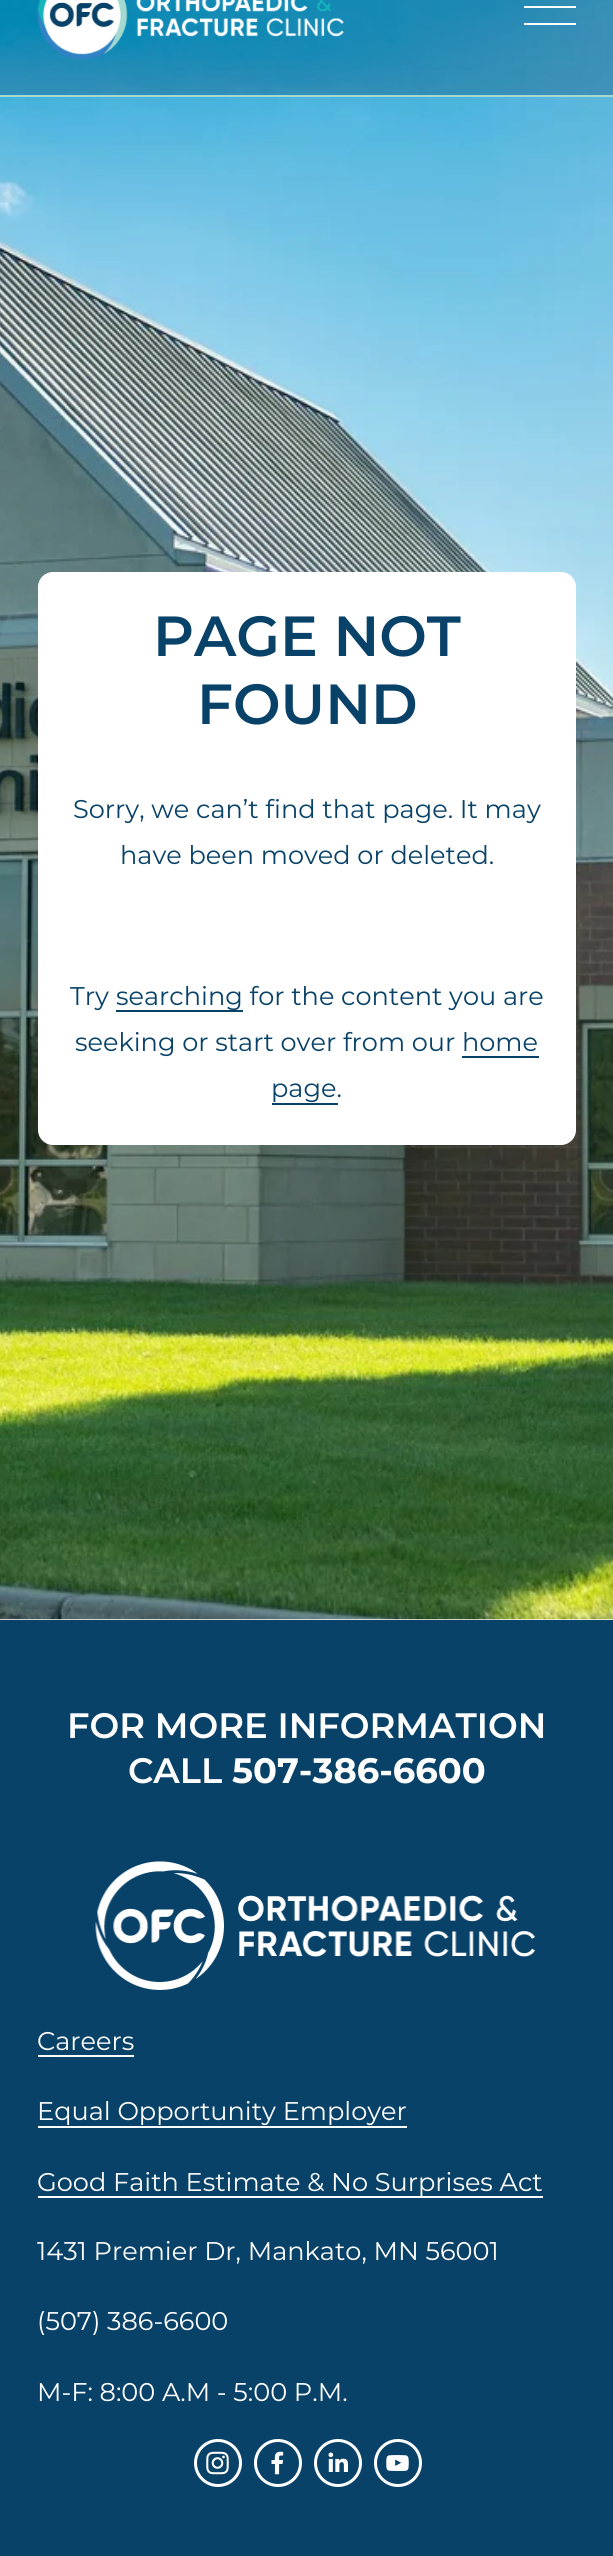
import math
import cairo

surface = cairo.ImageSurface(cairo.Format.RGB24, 613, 2556)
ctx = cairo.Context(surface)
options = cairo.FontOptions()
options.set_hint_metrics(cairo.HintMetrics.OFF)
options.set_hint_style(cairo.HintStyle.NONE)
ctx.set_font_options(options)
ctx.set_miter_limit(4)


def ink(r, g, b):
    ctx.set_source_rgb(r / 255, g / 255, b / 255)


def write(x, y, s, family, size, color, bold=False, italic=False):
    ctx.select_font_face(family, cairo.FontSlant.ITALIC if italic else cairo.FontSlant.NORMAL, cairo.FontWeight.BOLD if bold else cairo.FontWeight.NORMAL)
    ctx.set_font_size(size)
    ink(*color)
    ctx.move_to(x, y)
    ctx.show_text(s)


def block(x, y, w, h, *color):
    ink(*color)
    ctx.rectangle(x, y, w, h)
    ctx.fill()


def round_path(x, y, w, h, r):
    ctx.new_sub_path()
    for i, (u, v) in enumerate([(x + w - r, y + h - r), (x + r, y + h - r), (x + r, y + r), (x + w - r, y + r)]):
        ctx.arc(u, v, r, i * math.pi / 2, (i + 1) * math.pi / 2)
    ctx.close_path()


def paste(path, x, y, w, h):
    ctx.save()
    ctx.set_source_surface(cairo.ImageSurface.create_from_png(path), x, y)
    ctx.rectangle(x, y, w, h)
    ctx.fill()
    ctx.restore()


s1 = dict(family="Montserrat SemiBold", size=56.5, color=(9, 66, 104))
s2 = dict(family="Montserrat", size=25.6, color=(9, 66, 104))
s3 = dict(family="Montserrat SemiBold", size=35.3, color=(255, 255, 255))
s4 = dict(family="Montserrat", size=35.3, color=(255, 255, 255), bold=True)
s5 = dict(family="Montserrat", size=25.6, color=(255, 255, 255))

ink(255, 255, 255)
ctx.paint()
paste("pic2.png", 0, 0, 613, 1620)
ctx.set_source_rgba(0.035, 0.259, 0.408, 0.31)
ctx.rectangle(0, 0, 613, 95)
ctx.fill()
paste("pic1.png", 37, 0, 307, 60)
block(524, 6, 52, 2, 255, 255, 255)
block(524, 23, 52, 2, 255, 255, 255)
block(0, 95, 613, 2, 164, 217, 209)
ink(255, 255, 255)
round_path(38, 572, 538, 573, 15)
ctx.fill()
write(153, 656, "PAGE NOT", **s1)
write(197, 724, "FOUND", **s1)
write(73, 818, "Sorry, we can’t find that page. It may", **s2)
write(120, 864, "have been moved or deleted.", **s2)
write(70, 1005, "Try", **s2)
block(116, 1010, 127, 2, 9, 66, 104)
write(116, 1005, "searching for the content you are", **s2)
write(75, 1051, "seeking or start over from our home", **s2)
write(271, 1097, "page.", **s2)
block(462, 1056, 77, 2, 9, 66, 104)
block(272, 1103, 66, 2, 9, 66, 104)
block(0, 1620, 613, 936, 9, 66, 104)
write(67, 1738, "FOR MORE INFORMATION", **s3)
write(128, 1783, "CALL", **s3)
write(232, 1783, "507-386-6600", **s4)
paste("pic3.png", 95, 1861, 441, 129)
write(37, 2050, "Careers", **s5)
block(38, 2055, 96, 2, 255, 255, 255)
write(37, 2120, "Equal Opportunity Employer", **s5)
block(38, 2126, 369, 2, 255, 255, 255)
write(37, 2191, "Good Faith Estimate & No Surprises Act", **s5)
block(38, 2196, 505, 2, 255, 255, 255)
write(37, 2260, "1431 Premier Dr, Mankato, MN 56001", **s5)
write(37, 2330, "(507) 386-6600", **s5)
write(37, 2401, "M-F: 8:00 A.M - 5:00 P.M.", **s5)
ctx.new_path()
ctx.arc(218, 2463, 22.5, 0, 2 * math.pi)
ctx.set_line_width(3)
ctx.stroke()
paste("pic4.png", 206, 2451, 23, 24)
ctx.arc(278, 2463, 22.5, 0, 2 * math.pi)
ctx.stroke()
paste("pic5.png", 271, 2451, 13, 24)
ctx.arc(338, 2463, 22.5, 0, 2 * math.pi)
ctx.stroke()
paste("pic6.png", 328, 2452, 20, 20)
ctx.arc(398, 2463, 22.5, 0, 2 * math.pi)
ctx.stroke()
paste("pic7.png", 386, 2455, 23, 16)
surface.write_to_png("screenshot.png")
